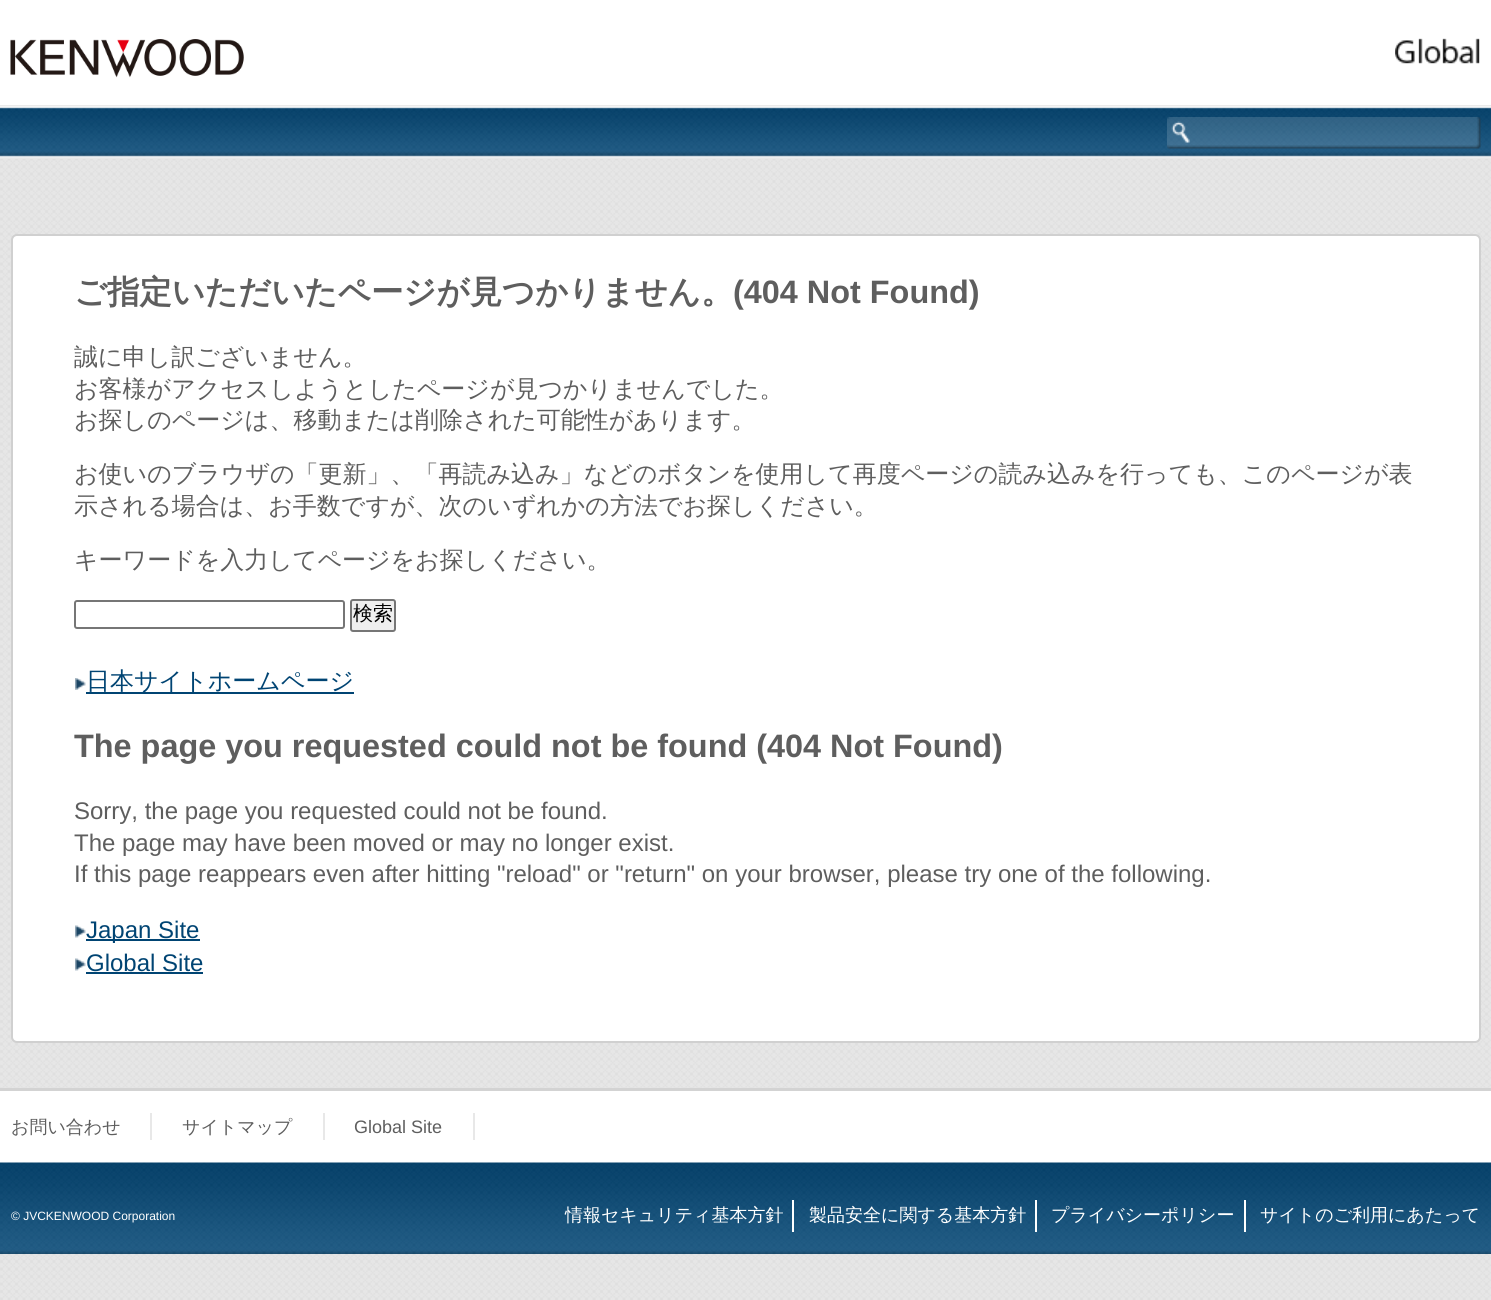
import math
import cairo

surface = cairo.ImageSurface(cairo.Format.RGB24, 1491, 1300)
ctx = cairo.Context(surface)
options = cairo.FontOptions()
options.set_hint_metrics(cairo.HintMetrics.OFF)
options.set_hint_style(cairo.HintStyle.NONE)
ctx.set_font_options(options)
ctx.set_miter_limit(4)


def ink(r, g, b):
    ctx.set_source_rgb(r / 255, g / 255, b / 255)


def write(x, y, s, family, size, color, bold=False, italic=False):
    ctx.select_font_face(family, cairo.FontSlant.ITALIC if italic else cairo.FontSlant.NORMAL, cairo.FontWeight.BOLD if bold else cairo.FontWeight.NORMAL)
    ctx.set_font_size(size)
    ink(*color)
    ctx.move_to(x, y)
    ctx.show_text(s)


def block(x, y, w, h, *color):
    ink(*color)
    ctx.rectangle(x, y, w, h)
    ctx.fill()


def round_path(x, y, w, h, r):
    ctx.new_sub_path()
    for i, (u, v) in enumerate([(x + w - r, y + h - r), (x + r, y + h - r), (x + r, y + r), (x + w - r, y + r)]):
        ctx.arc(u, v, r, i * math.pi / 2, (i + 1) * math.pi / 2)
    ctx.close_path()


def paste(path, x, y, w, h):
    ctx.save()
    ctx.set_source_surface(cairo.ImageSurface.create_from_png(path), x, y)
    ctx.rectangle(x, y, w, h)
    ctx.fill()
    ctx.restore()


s1 = dict(family="WenQuanYi Zen Hei", size=32.4, color=(94, 94, 94), bold=True)
s2 = dict(family="Liberation Sans", size=32.4, color=(94, 94, 94), bold=True)
s3 = dict(family="WenQuanYi Zen Hei Medium", size=24, color=(94, 94, 94))
s4 = dict(family="WenQuanYi Zen Hei Medium", size=20, color=(0, 0, 0))
s5 = dict(family="WenQuanYi Zen Hei Medium", size=24, color=(0, 68, 115))
s6 = dict(family="Liberation Sans", size=24, color=(94, 94, 94))
s7 = dict(family="Liberation Sans", size=24, color=(0, 68, 115))
s8 = dict(family="WenQuanYi Zen Hei Medium", size=18, color=(94, 94, 94))
s9 = dict(family="Liberation Sans", size=18, color=(94, 94, 94))
s10 = dict(family="Liberation Sans", size=12, color=(255, 255, 255))
s11 = dict(family="WenQuanYi Zen Hei Medium", size=18, color=(255, 255, 255))

ink(255, 255, 255)
ctx.paint()
paste("pic1.png", 0, 159, 1491, 1141)
paste("pic2.png", 0, 105, 1491, 54)
paste("pic3.png", 10, 39, 234, 39)
paste("pic4.png", 1395, 38, 85, 26)
paste("pic5.png", 1167, 117, 314, 32)
ink(255, 255, 255)
round_path(12, 235, 1468, 807, 5)
ctx.fill_preserve()
ink(208, 208, 208)
ctx.stroke()
write(74, 303, "ご指定いただいたページが見つかりません。", **s1)
write(733, 303, "(404 Not Found)", **s2)
write(74, 365, "誠に申し訳ございません。", **s3)
write(74, 397, "お客様がアクセスしようとしたページが見つかりませんでした。", **s3)
write(74, 428, "お探しのページは、移動または削除された可能性があります。", **s3)
write(74, 482, "お使いのブラウザの「更新」、「再読み込み」などのボタンを使用して再度ページの読み込みを行っても、このページが表", **s3)
write(74, 514, "示される場合は、お手数ですが、次のいずれかの方法でお探しください。", **s3)
write(74, 568, "キーワードを入力してページをお探しください。", **s3)
round_path(75, 601, 269, 27, 2)
ink(118, 118, 118)
ctx.stroke()
ink(239, 239, 239)
round_path(351, 600, 44, 31, 2)
ctx.fill_preserve()
ink(118, 118, 118)
ctx.stroke()
write(353, 620, "検索", **s4)
paste("pic6.png", 75, 678, 11, 12)
block(86, 692, 268, 2, 0, 68, 115)
write(86, 689, "日本サイトホームページ", **s5)
write(74, 757, "The page you requested could not be found (404 Not Found)", **s2)
write(74, 819, "Sorry, the page you requested could not be found.", **s6)
write(74, 851, "The page may have been moved or may no longer exist.", **s6)
write(74, 882, "If this page reappears even after hitting \"reload\" or \"return\" on your browser, please try one of the following.", **s6)
paste("pic7.png", 75, 925, 11, 13)
block(86, 939, 114, 2, 0, 68, 115)
write(86, 938, "Japan Site", **s7)
paste("pic7.png", 75, 958, 11, 13)
write(86, 971, "Global Site", **s7)
block(86, 972, 117, 2, 0, 68, 115)
block(0, 1091, 1491, 72, 255, 255, 255)
paste("pic8.png", 0, 1162, 1491, 92)
block(0, 1088, 1491, 3, 211, 211, 211)
block(150, 1113, 2, 27, 232, 232, 232)
write(11, 1133, "お問い合わせ", **s8)
block(323, 1113, 2, 27, 232, 232, 232)
write(182, 1133, "サイトマップ", **s8)
block(473, 1113, 2, 27, 232, 232, 232)
write(354, 1133, "Global Site", **s9)
write(11, 1220, "© JVCKENWOOD Corporation", **s10)
write(565, 1221, "情報セキュリティ基本方針", **s11)
block(792, 1200, 2, 32, 255, 255, 255)
write(809, 1221, "製品安全に関する基本方針", **s11)
block(1035, 1200, 2, 32, 255, 255, 255)
write(1051, 1221, "プライバシーポリシー", **s11)
block(1244, 1200, 2, 32, 255, 255, 255)
write(1260, 1221, "サイトのご利用にあたって", **s11)
surface.write_to_png("screenshot.png")
